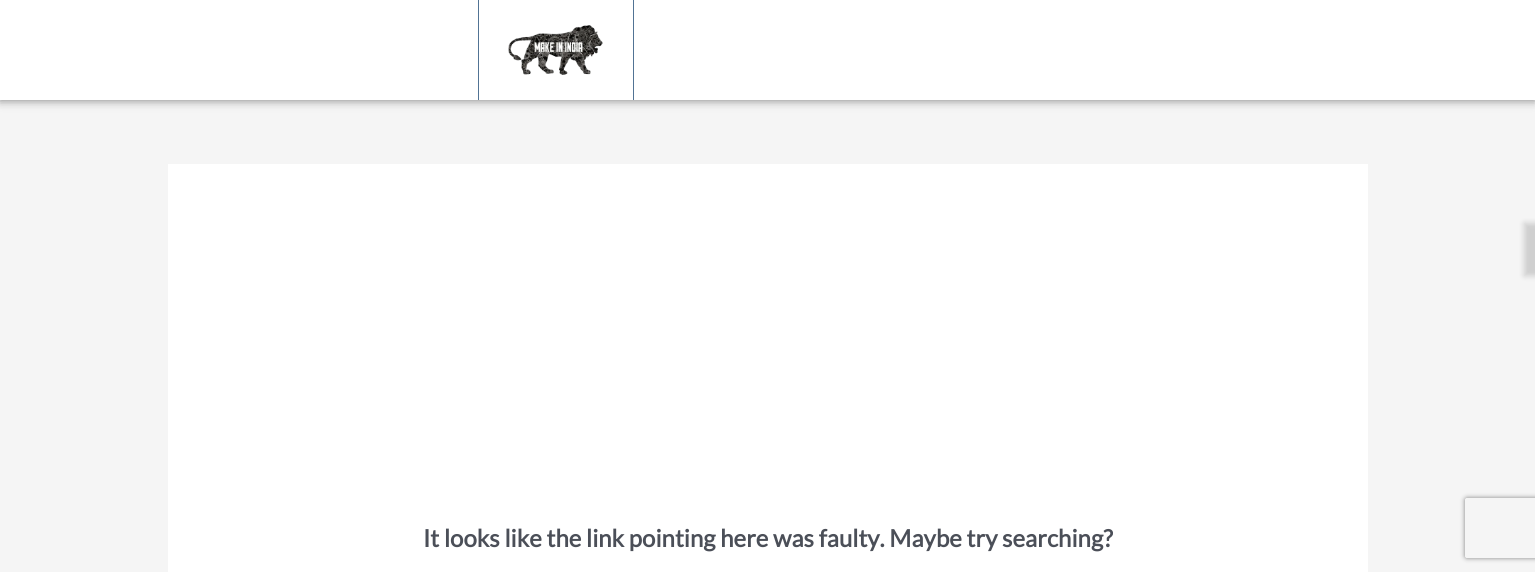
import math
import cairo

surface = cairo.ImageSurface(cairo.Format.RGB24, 1535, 572)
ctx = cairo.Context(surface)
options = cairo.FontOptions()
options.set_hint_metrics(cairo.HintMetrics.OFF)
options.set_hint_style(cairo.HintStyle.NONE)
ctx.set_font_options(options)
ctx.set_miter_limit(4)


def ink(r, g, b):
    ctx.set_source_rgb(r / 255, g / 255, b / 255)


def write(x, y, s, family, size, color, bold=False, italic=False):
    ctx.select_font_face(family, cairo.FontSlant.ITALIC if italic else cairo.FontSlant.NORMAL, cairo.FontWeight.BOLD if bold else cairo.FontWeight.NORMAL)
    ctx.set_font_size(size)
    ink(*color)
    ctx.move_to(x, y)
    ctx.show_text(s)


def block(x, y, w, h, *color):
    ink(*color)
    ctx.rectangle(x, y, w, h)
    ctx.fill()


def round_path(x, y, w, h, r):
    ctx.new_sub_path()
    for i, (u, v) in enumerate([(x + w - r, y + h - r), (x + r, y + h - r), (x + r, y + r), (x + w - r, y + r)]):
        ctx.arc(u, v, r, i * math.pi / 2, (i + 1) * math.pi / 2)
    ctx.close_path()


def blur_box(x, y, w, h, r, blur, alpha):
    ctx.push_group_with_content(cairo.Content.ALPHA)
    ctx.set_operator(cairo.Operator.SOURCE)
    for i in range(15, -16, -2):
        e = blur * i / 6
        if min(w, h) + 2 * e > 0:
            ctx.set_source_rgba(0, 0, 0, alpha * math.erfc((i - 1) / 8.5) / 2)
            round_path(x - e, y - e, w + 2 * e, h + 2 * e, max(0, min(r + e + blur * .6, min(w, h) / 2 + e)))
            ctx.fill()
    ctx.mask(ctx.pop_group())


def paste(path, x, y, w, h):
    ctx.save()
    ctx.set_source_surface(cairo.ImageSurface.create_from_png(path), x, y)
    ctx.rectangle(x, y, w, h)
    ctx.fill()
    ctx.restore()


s1 = dict(family="Lato", size=24, color=(75, 79, 88), bold=True)

ink(245, 245, 245)
ctx.paint()
ink(0, 0, 0)
blur_box(1524, 223, 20, 53, 0, 3, 0.16)
blur_box(0, 0, 1535, 100, 0, 5, 0.5)
block(0, 0, 1535, 100, 255, 255, 255)
block(633, 0, 1, 100, 81, 115, 148)
block(478, 0, 1, 100, 81, 115, 148)
paste("pic1.png", 508, 25, 95, 50)
block(168, 164, 1200, 408, 255, 255, 255)
write(423, 547, "It looks like the link pointing here was faulty. Maybe try searching?", **s1)
ctx.save()
ctx.set_fill_rule(cairo.FillRule.EVEN_ODD)
ctx.new_path()
ctx.move_to(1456, 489)
ctx.line_to(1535, 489)
ctx.line_to(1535, 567)
ctx.line_to(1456, 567)
ctx.close_path()
ctx.move_to(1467, 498)
ctx.line_to(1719, 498)
ctx.curve_to(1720, 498, 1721, 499, 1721, 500)
ctx.line_to(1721, 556)
ctx.curve_to(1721, 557, 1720, 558, 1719, 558)
ctx.line_to(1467, 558)
ctx.curve_to(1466, 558, 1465, 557, 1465, 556)
ctx.line_to(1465, 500)
ctx.curve_to(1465, 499, 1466, 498, 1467, 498)
ctx.close_path()
ctx.clip()
ink(128, 128, 128)
blur_box(1465, 498, 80, 60, 2, 2.5, 1)
ctx.restore()
surface.write_to_png("screenshot.png")
